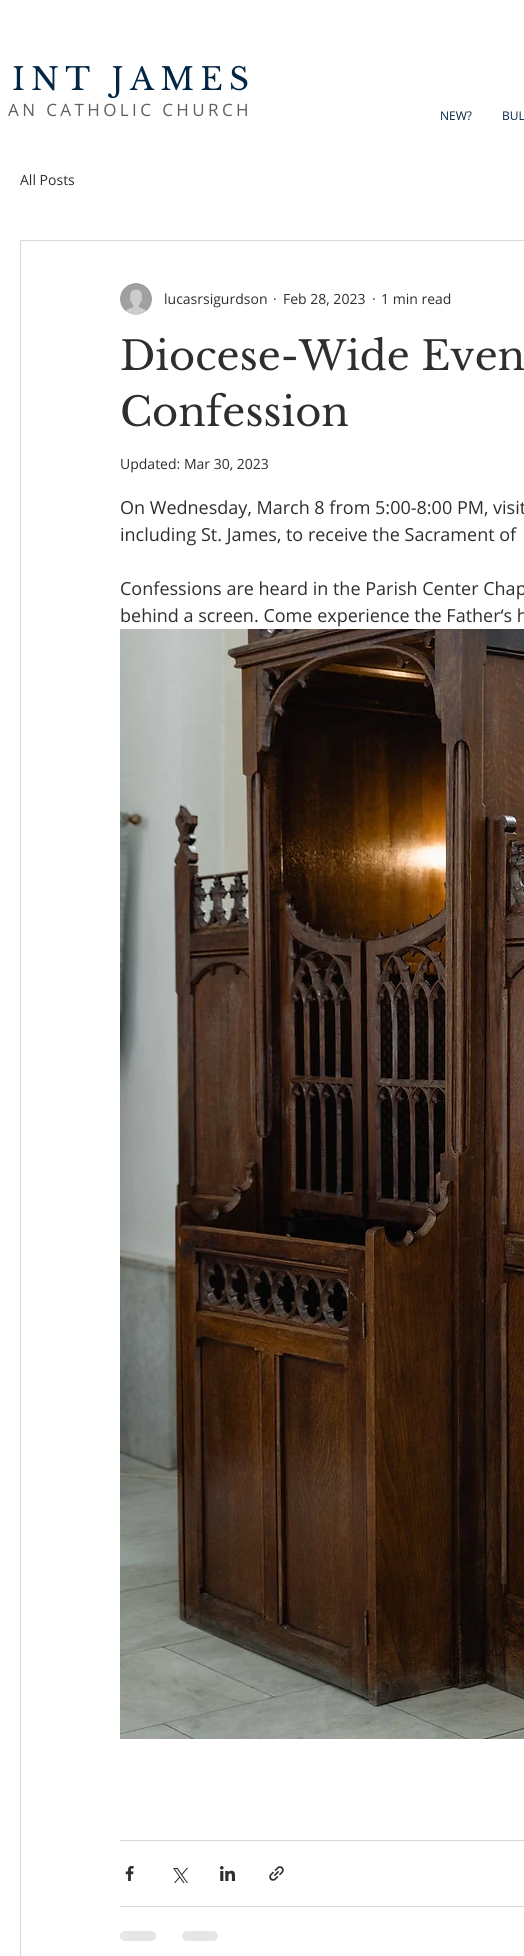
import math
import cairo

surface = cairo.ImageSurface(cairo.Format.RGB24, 524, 1956)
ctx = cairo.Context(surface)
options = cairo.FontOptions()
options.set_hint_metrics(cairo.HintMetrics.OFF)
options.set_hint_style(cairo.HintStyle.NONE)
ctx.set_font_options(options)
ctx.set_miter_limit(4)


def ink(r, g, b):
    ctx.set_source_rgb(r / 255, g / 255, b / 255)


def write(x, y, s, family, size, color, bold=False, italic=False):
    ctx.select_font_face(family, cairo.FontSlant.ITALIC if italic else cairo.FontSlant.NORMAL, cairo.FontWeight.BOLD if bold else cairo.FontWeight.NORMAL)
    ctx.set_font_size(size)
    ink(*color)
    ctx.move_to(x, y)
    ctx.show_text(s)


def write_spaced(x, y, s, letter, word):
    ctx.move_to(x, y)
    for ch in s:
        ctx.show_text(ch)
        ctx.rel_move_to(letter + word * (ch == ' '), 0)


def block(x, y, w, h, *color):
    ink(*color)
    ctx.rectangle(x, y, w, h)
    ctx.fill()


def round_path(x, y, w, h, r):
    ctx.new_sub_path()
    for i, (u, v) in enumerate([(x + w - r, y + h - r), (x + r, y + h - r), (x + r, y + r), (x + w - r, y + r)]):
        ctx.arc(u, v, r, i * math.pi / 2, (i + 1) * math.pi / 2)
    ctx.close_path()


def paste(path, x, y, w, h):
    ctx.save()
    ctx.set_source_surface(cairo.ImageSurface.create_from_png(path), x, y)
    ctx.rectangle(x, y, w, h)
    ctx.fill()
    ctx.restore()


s1 = dict(family="Open Sans", size=12, color=(1, 38, 70))
s2 = dict(family="Open Sans", size=14, color=(47, 46, 46))
s3 = dict(family="Libre Baskerville", size=40, color=(47, 46, 46))
s4 = dict(family="Open Sans", size=18, color=(47, 46, 46))

ink(255, 255, 255)
ctx.paint()
ctx.select_font_face("Libre Baskerville")
ctx.set_font_size(31)
ink(1, 38, 70)
write_spaced(12, 90, "INT JAMES", 6.25, 0)
ctx.select_font_face("Open Sans")
ctx.set_font_size(17)
ink(96, 94, 94)
write_spaced(8, 116, "AN CATHOLIC CHURCH", 3.4, 0)
write(440, 120, "NEW?", **s1)
write(502, 120, "BUL", **s1)
write(20, 185, "All Posts", **s2)
ctx.rectangle(20.5, 240.5, 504, 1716)
ink(217, 217, 217)
ctx.set_line_width(1)
ctx.stroke()
paste("pic1.png", 120, 283, 32, 32)
write(164, 304, "lucasrsigurdson", **s2)
write(273, 304, "·", **s2)
write(283, 304, "Feb 28, 2023", **s2)
write(372, 304, "·", **s2)
write(381, 304, "1 min read", **s2)
write(120, 370, "Diocese-Wide Even", **s3)
write(120, 426, "Confession", **s3)
write(120, 469, "Updated: Mar 30, 2023", **s2)
write(120, 514, "On Wednesday, March 8 from 5:00-8:00 PM, visit", **s4)
write(120, 541, "including St. James, to receive the Sacrament of", **s4)
write(120, 595, "Confessions are heard in the Parish Center Chap", **s4)
write(120, 622, "behind a screen. Come experience the Father‘s h", **s4)
paste("pic2.png", 120, 629, 404, 1110)
block(120, 1840, 404, 1, 213, 213, 213)
paste("pic3.png", 125, 1866, 9, 15)
paste("pic4.png", 173, 1868, 15, 15)
paste("pic5.png", 220, 1866, 15, 15)
paste("pic6.png", 269, 1866, 15, 15)
block(120, 1906, 404, 1, 213, 213, 213)
ink(230, 230, 230)
round_path(120, 1931, 36, 10, 5)
ctx.fill()
round_path(182, 1931, 36, 10, 5)
ctx.fill()
surface.write_to_png("screenshot.png")
